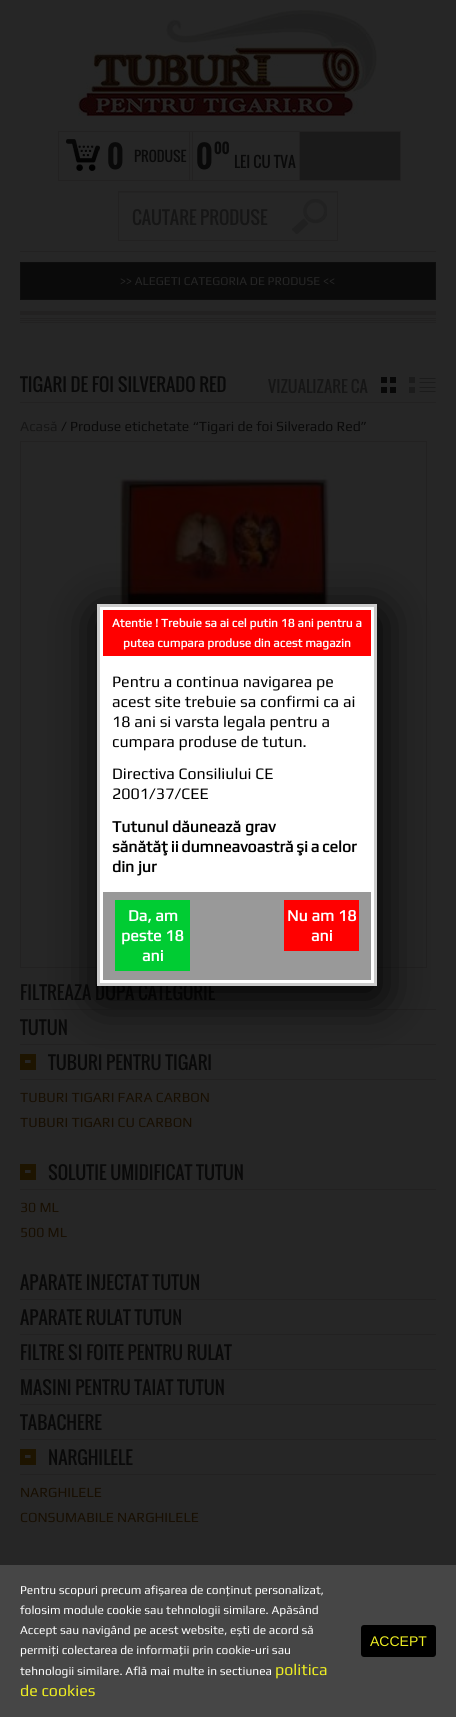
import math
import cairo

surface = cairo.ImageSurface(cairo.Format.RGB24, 456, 1717)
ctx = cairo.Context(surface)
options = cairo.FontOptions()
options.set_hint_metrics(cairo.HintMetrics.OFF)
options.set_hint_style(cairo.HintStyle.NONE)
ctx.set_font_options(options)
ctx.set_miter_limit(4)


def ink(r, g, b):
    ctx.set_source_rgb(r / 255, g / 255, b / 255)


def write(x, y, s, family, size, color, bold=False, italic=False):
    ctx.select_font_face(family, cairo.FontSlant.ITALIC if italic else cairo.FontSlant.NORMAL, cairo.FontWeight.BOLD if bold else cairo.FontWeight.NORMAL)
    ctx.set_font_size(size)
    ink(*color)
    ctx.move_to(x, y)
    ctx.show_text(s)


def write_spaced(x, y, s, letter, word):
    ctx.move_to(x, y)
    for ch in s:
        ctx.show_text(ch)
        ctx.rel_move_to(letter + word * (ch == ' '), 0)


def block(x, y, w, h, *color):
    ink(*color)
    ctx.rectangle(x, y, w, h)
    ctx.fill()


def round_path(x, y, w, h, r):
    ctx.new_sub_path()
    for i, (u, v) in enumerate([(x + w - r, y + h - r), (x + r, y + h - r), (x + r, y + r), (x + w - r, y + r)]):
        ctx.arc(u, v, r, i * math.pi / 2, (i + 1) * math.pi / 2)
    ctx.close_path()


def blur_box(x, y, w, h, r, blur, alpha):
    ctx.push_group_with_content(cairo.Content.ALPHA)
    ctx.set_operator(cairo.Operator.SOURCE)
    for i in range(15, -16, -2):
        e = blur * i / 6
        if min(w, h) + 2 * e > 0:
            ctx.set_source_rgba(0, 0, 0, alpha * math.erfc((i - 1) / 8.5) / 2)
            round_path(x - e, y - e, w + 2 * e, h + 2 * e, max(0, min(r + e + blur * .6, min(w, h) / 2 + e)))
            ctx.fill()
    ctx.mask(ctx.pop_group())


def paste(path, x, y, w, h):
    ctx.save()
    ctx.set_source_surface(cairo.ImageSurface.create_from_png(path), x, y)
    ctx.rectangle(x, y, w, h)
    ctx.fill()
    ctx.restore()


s1 = dict(family="Oswald", size=30, color=(9, 9, 9), bold=True)
s2 = dict(family="Oswald", size=14, color=(9, 9, 9))
s3 = dict(family="Oswald", size=14, color=(9, 9, 9), bold=True)
s4 = dict(family="Oswald", size=15, color=(9, 9, 9))
s5 = dict(family="Oswald", size=18, color=(21, 21, 21))
s6 = dict(family="Play", size=12, color=(38, 38, 38))
s7 = dict(family="Oswald", size=18, color=(9, 9, 9))
s8 = dict(family="Oswald", size=16, color=(21, 21, 21))
s9 = dict(family="Play", size=14, color=(21, 21, 21))
s10 = dict(family="Play", size=14, color=(9, 9, 9))
s11 = dict(family="Play", size=14, color=(23, 14, 1))
s12 = dict(family="Play", size=12, color=(255, 255, 255), bold=True)
s13 = dict(family="Play", size=16, color=(0, 0, 0))
s14 = dict(family="Play", size=16, color=(0, 0, 0), bold=True)
s15 = dict(family="Play", size=16, color=(255, 255, 255), bold=True)
s16 = dict(family="Play", size=12, color=(255, 255, 255))
s17 = dict(family="Play", size=16, color=(238, 238, 34))
s18 = dict(family="Liberation Sans", size=14, color=(238, 238, 34))

ink(38, 38, 38)
ctx.paint()
paste("pic1.png", 78, 10, 299, 106)
paste("pic2.png", 66, 139, 34, 32)
ctx.rectangle(58.5, 131.5, 134, 49)
ink(34, 33, 33)
ctx.set_line_width(1)
ctx.stroke()
write(107, 169, "0", **s1)
write(134, 162, "PRODUSE", **s2)
ctx.rectangle(189.5, 131.5, 113, 49)
ink(34, 33, 33)
ctx.stroke()
write(196, 169, "0", **s1)
write(214, 154, "00", **s3)
write(234, 168, "LEI CU TVA", **s4)
ink(26, 26, 26)
ctx.rectangle(299.5, 131.5, 101, 49)
ctx.fill_preserve()
ink(34, 33, 33)
ctx.stroke()
paste("pic3.png", 292, 199, 35, 35)
block(119, 192, 218, 1, 35, 35, 35)
ctx.rectangle(118.5, 191.5, 219, 49)
ink(34, 33, 33)
ctx.stroke()
write(132, 225, "CAUTARE PRODUSE", **s5)
block(20, 251, 416, 1, 34, 33, 33)
ink(10, 10, 10)
ctx.rectangle(20.5, 262.5, 415, 37)
ctx.fill_preserve()
ink(13, 13, 13)
ctx.stroke()
write(120, 285, ">> ALEGETI CATEGORIA DE PRODUSE <<", **s6)
block(20, 311, 416, 4, 34, 33, 33)
block(20, 318, 416, 1, 34, 33, 33)
block(20, 320, 416, 1, 34, 33, 33)
block(20, 322, 416, 1, 34, 33, 33)
write(20, 392, "TIGARI DE FOI SILVERADO RED", **s7)
block(20, 402, 416, 1, 34, 33, 33)
write(268, 393, "VIZUALIZARE CA", **s8)
paste("pic4.png", 381, 377, 15, 16)
paste("pic5.png", 409, 377, 27, 16)
write(20, 431, "Acasă", **s9)
write(61, 431, "/ Produse etichetate “Tigari de foi Silverado Red”", **s10)
block(20, 441, 407, 1, 34, 33, 33)
block(426, 441, 1, 527, 34, 33, 33)
block(20, 441, 1, 445, 34, 33, 33)
paste("pic6.png", 114, 474, 233, 130)
block(20, 967, 407, 1, 34, 33, 33)
block(20, 886, 1, 82, 34, 33, 33)
block(20, 1009, 416, 1, 34, 33, 33)
write(20, 1000, "FILTREAZA DUPA CATEGORIE", **s7)
block(20, 1044, 416, 1, 34, 33, 33)
write(20, 1035, "TUTUN", **s7)
paste("pic7.png", 20, 1054, 16, 16)
block(20, 1079, 416, 1, 34, 33, 33)
write(48, 1070, "TUBURI PENTRU TIGARI", **s7)
write(20, 1102, "TUBURI TIGARI FARA CARBON", **s11)
write(20, 1127, "TUBURI TIGARI CU CARBON", **s11)
paste("pic7.png", 20, 1164, 16, 16)
block(20, 1189, 416, 1, 34, 33, 33)
write(48, 1180, "SOLUTIE UMIDIFICAT TUTUN", **s7)
write(20, 1212, "30 ML", **s11)
write(20, 1237, "500 ML", **s11)
block(20, 1299, 416, 1, 34, 33, 33)
write(20, 1290, "APARATE INJECTAT TUTUN", **s7)
block(20, 1334, 416, 1, 34, 33, 33)
write(20, 1325, "APARATE RULAT TUTUN", **s7)
block(20, 1369, 416, 1, 34, 33, 33)
write(20, 1360, "FILTRE SI FOITE PENTRU RULAT", **s7)
block(20, 1404, 416, 1, 34, 33, 33)
write(20, 1395, "MASINI PENTRU TAIAT TUTUN", **s7)
block(20, 1439, 416, 1, 34, 33, 33)
write(20, 1430, "TABACHERE", **s7)
paste("pic7.png", 20, 1449, 16, 16)
block(20, 1474, 416, 1, 34, 33, 33)
write(48, 1465, "NARGHILELE", **s7)
write(20, 1497, "NARGHILELE", **s11)
write(20, 1522, "CONSUMABILE NARGHILELE", **s11)
ink(0, 0, 0)
blur_box(99, 615, 280, 382, 0, 24, 1)
ink(255, 255, 255)
ctx.rectangle(98.5, 605.5, 277, 379)
ctx.fill_preserve()
ink(204, 204, 204)
ctx.set_line_width(3)
ctx.stroke()
block(103, 610, 268, 46, 255, 0, 0)
write(112, 627, "Atentie ! Trebuie sa ai cel putin 18 ani pentru a", **s12)
write(123, 647, "putea cumpara produse din acest magazin", **s12)
write(112, 687, "Pentru a continua navigarea pe", **s13)
write(112, 707, "acest site trebuie sa confirmi ca ai", **s13)
write(112, 727, "18 ani si varsta legala pentru a", **s13)
write(112, 747, "cumpara produse de tutun.", **s13)
write(112, 779, "Directiva Consiliului CE", **s13)
write(112, 799, "2001/37/CEE", **s13)
write(112, 832, "Tutunul dăunează grav", **s14)
write_spaced(112, 852, "sănătăţii dumneavoastră şi a celor", 0, -1)
write(112, 872, "din jur", **s14)
block(103, 892, 268, 88, 153, 153, 153)
block(115, 900, 75, 71, 0, 204, 51)
write(128, 921, "Da, am", **s15)
write(121, 941, "peste 18", **s15)
write(142, 961, "ani", **s15)
block(284, 900, 75, 51, 255, 0, 0)
write(287, 921, "Nu am 18", **s15)
write(311, 941, "ani", **s15)
block(0, 1565, 456, 152, 70, 70, 70)
write(20, 1594, "Pentru scopuri precum afișarea de conținut personalizat,", **s16)
write(20, 1614, "folosim module cookie sau tehnologii similare. Apăsând", **s16)
write(20, 1634, "Accept sau navigând pe acest website, ești de acord să", **s16)
write(20, 1654, "permiți colectarea de informații prin cookie-uri sau", **s16)
write(20, 1675, "tehnologii similare. Află mai multe in sectiunea", **s16)
write(275, 1675, "politica", **s17)
write(20, 1696, "de cookies", **s17)
ink(0, 0, 0)
round_path(361, 1625, 75, 32, 3)
ctx.fill()
write(370, 1646, "ACCEPT", **s18)
surface.write_to_png("screenshot.png")
